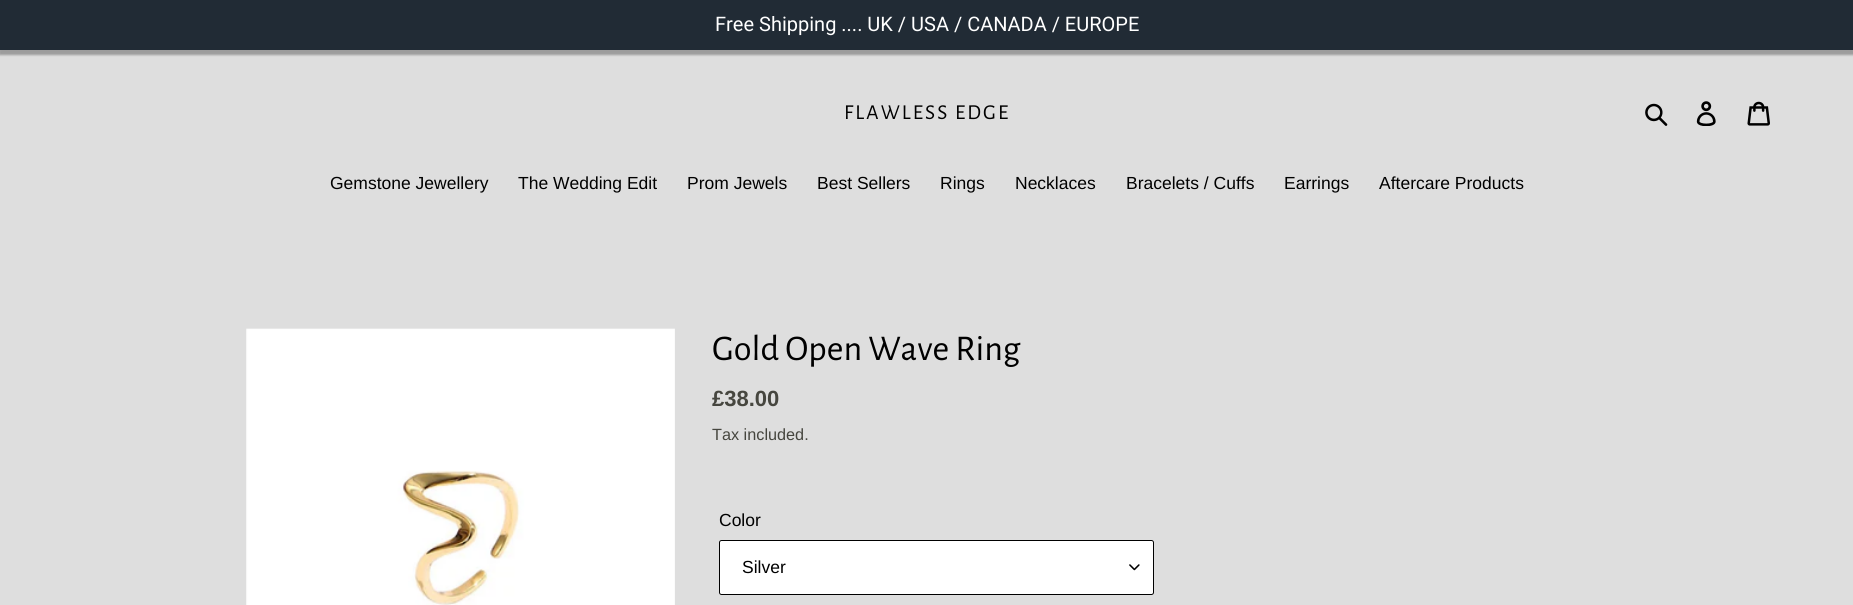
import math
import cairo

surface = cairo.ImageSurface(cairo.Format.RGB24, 1853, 605)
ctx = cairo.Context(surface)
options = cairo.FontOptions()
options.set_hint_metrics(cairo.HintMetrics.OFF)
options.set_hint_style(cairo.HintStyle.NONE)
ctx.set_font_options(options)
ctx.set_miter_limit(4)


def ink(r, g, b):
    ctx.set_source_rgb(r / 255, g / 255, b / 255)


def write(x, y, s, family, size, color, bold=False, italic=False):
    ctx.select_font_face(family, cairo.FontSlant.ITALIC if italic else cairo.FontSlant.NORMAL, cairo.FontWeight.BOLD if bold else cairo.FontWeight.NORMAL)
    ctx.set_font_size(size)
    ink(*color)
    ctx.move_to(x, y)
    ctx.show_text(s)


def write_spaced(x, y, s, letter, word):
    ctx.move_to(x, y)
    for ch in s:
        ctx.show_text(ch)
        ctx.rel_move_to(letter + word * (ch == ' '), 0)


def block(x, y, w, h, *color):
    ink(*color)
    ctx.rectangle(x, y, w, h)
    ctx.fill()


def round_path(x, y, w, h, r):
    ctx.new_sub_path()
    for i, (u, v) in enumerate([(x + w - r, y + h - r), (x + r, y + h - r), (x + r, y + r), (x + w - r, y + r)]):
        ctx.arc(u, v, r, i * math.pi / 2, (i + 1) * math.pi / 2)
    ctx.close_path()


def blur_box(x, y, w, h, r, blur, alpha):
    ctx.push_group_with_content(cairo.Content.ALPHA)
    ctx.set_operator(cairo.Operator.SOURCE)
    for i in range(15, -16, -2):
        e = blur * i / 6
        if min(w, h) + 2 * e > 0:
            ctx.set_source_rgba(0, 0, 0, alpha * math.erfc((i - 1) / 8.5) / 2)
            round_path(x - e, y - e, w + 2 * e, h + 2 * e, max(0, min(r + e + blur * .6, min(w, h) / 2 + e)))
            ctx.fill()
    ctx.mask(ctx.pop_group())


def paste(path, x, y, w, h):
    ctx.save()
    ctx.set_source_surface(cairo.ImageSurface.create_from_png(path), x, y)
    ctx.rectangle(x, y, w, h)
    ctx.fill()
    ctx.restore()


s1 = dict(family="Roboto", size=20, color=(255, 255, 255))
s2 = dict(family="Liberation Sans", size=17.5, color=(0, 0, 0))
s3 = dict(family="Alegreya Sans", size=36.25, color=(0, 0, 0))
s4 = dict(family="Liberation Sans", size=22, color=(70, 70, 63), bold=True)
s5 = dict(family="Liberation Sans", size=16.25, color=(70, 70, 63))

ink(222, 222, 222)
ctx.paint()
ink(0, 0, 0)
blur_box(-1, 3, 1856, 52, 0, 1, 0.3)
block(0, 0, 1853, 50, 33, 43, 53)
write(715, 31, "Free Shipping .... UK / USA / CANADA / EUROPE", **s1)
ctx.select_font_face("Alegreya Sans")
ctx.set_font_size(21.25)
ink(0, 0, 0)
write_spaced(844, 119, "FLAWLESS EDGE", 2.1, 0)
paste("pic1.png", 1645, 103, 23, 23)
paste("pic2.png", 1696, 101, 20, 25)
paste("pic3.png", 1747, 101, 23, 25)
write(330, 189, "Gemstone Jewellery", **s2)
write(518, 189, "The Wedding Edit", **s2)
write(687, 189, "Prom Jewels", **s2)
write(817, 189, "Best Sellers", **s2)
write(940, 189, "Rings", **s2)
write(1015, 189, "Necklaces", **s2)
write(1126, 189, "Bracelets / Cuffs", **s2)
write(1284, 189, "Earrings", **s2)
write(1379, 189, "Aftercare Products", **s2)
paste("pic4.png", 246, 328, 429, 277)
write(712, 360, "Gold Open Wave Ring", **s3)
write(712, 406, "£38.00", **s4)
write(712, 440, "Tax included.", **s5)
write(719, 526, "Color", **s2)
ink(255, 255, 255)
round_path(719, 540, 435, 55, 2.5)
ctx.fill()
paste("pic5.png", 1129, 564, 11, 7)
round_path(719.5, 540.5, 434, 54, 2)
ink(0, 0, 0)
ctx.set_line_width(1)
ctx.stroke()
write(742, 573, "Silver", **s2)
surface.write_to_png("screenshot.png")
